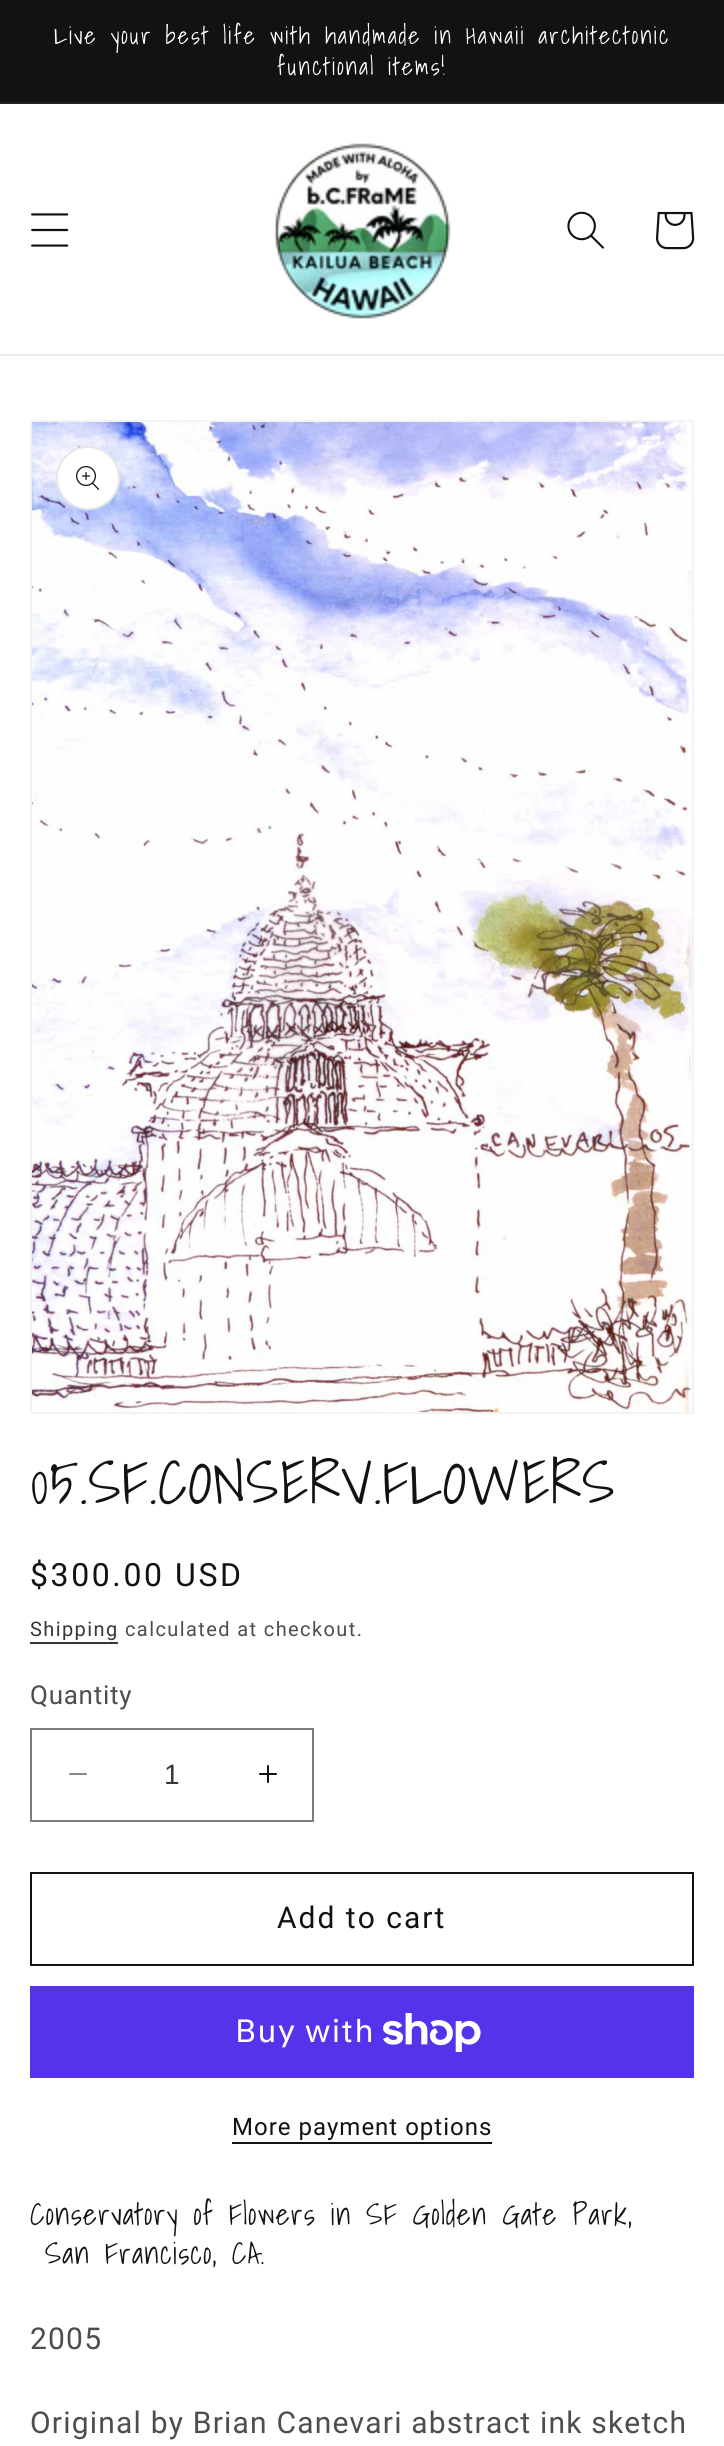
import math
import cairo

surface = cairo.ImageSurface(cairo.Format.RGB24, 724, 2446)
ctx = cairo.Context(surface)
options = cairo.FontOptions()
options.set_hint_metrics(cairo.HintMetrics.OFF)
options.set_hint_style(cairo.HintStyle.NONE)
ctx.set_font_options(options)
ctx.set_miter_limit(4)


def ink(r, g, b):
    ctx.set_source_rgb(r / 255, g / 255, b / 255)


def write(x, y, s, family, size, color, bold=False, italic=False):
    ctx.select_font_face(family, cairo.FontSlant.ITALIC if italic else cairo.FontSlant.NORMAL, cairo.FontWeight.BOLD if bold else cairo.FontWeight.NORMAL)
    ctx.set_font_size(size)
    ink(*color)
    ctx.move_to(x, y)
    ctx.show_text(s)


def write_spaced(x, y, s, letter, word):
    ctx.move_to(x, y)
    for ch in s:
        ctx.show_text(ch)
        ctx.rel_move_to(letter + word * (ch == ' '), 0)


def block(x, y, w, h, *color):
    ink(*color)
    ctx.rectangle(x, y, w, h)
    ctx.fill()


def paste(path, x, y, w, h):
    ctx.save()
    ctx.set_source_surface(cairo.ImageSurface.create_from_png(path), x, y)
    ctx.rectangle(x, y, w, h)
    ctx.fill()
    ctx.restore()


s1 = dict(family="Liberation Sans", size=28, color=(54, 54, 54))

ink(255, 255, 255)
ctx.paint()
block(0, 0, 724, 102, 18, 18, 18)
block(0, 102, 724, 2, 37, 37, 37)
ctx.select_font_face("Shadows Into Light")
ctx.set_font_size(24)
ink(255, 255, 255)
write_spaced(54, 44, "Live your best life with handmade in Hawaii architectonic", 2, 0)
write_spaced(277, 75, "functional items!", 2, 0)
block(0, 354, 724, 2, 236, 236, 236)
paste("pic1.png", 31, 213, 38, 34)
paste("pic2.png", 274, 143, 177, 176)
paste("pic3.png", 567, 211, 37, 38)
paste("pic4.png", 656, 211, 39, 39)
ctx.rectangle(31, 421, 662, 992)
ink(243, 243, 243)
ctx.stroke()
paste("pic5.png", 32, 422, 660, 990)
ink(255, 255, 255)
ctx.arc(88, 478, 32, 0, 2 * math.pi)
ctx.fill()
ctx.arc(88, 478, 31, 0, 2 * math.pi)
ctx.set_source_rgba(0.071, 0.071, 0.071, 0.1)
ctx.stroke()
paste("pic6.png", 76, 466, 24, 24)
ctx.set_font_size(60)
ink(18, 18, 18)
write_spaced(30, 1504, "05.SF.CONSERV.FLOWERS", 1.2, 0)
ctx.select_font_face("Roboto")
ctx.set_font_size(32)
write_spaced(30, 1586, "$300.00 USD", 2.6, 0)
ctx.set_font_size(20)
ink(54, 54, 54)
write_spaced(30, 1636, "Shipping", 1.4, 0)
block(30, 1642, 88, 2, 54, 54, 54)
ink(77, 77, 77)
write_spaced(125, 1636, "calculated at checkout.", 1.4, 0)
ctx.set_font_size(26)
write_spaced(30, 1704, "Quantity", 0.75, 0)
paste("pic7.png", 69, 1773, 18, 2)
paste("pic8.png", 259, 1765, 18, 18)
ctx.rectangle(31, 1729, 282, 92)
ink(125, 125, 125)
ctx.stroke()
write(164, 1784, "1", **s1)
ctx.rectangle(31, 1873, 662, 92)
ink(18, 18, 18)
ctx.stroke()
ctx.select_font_face("Roboto")
ctx.set_font_size(30)
write_spaced(277, 1928, "Add to cart", 2, 0)
block(30, 1986, 664, 92, 84, 51, 235)
ctx.select_font_face("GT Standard")
ctx.set_font_size(32)
ink(255, 255, 255)
write_spaced(235, 2042, "Buy with", 1.2, 0)
paste("pic9.png", 383, 2013, 98, 39)
ctx.select_font_face("Roboto")
ctx.set_font_size(24)
ink(18, 18, 18)
write_spaced(232, 2135, "More payment options", 1, 0)
block(232, 2142, 260, 2, 18, 18, 18)
ctx.select_font_face("Shadows Into Light")
ctx.set_font_size(30)
write_spaced(30, 2225, "Conservatory of Flowers in SF Golden Gate Park,", 1.2, 0)
write_spaced(45, 2264, "San Francisco, CA.", 1.2, 0)
ctx.select_font_face("Roboto")
ink(77, 77, 77)
write_spaced(30, 2349, "2005", 1.2, 0)
write_spaced(30, 2433, "Original by Brian Canevari abstract ink sketch", 1.2, 0)
surface.write_to_png("screenshot.png")
